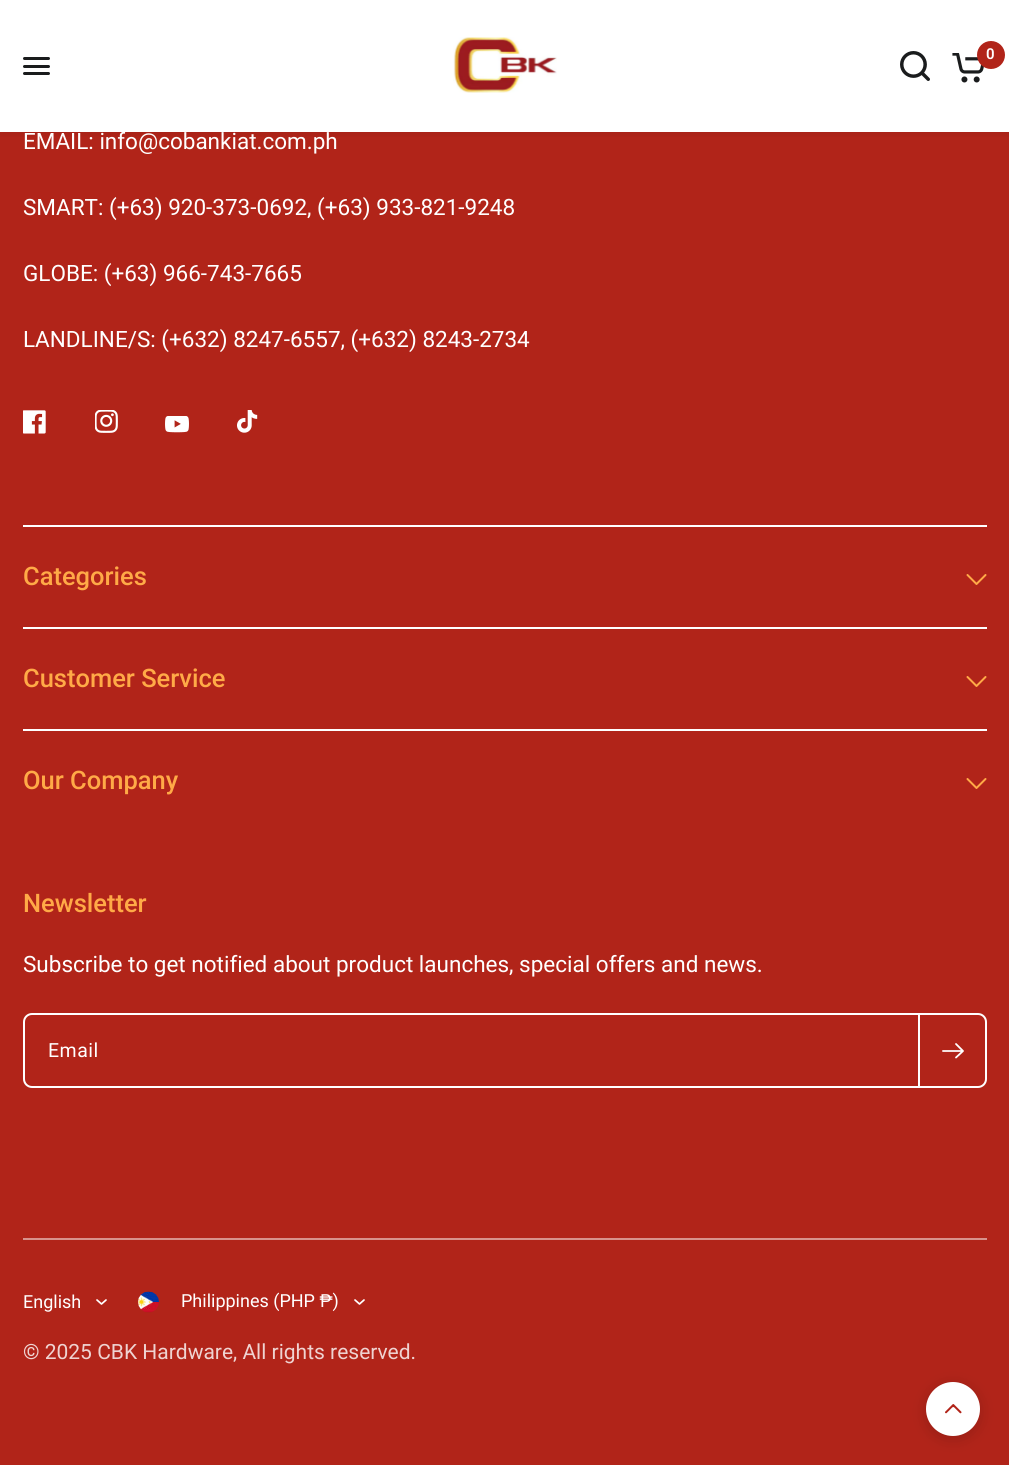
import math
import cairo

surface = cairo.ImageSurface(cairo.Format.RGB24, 1009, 1465)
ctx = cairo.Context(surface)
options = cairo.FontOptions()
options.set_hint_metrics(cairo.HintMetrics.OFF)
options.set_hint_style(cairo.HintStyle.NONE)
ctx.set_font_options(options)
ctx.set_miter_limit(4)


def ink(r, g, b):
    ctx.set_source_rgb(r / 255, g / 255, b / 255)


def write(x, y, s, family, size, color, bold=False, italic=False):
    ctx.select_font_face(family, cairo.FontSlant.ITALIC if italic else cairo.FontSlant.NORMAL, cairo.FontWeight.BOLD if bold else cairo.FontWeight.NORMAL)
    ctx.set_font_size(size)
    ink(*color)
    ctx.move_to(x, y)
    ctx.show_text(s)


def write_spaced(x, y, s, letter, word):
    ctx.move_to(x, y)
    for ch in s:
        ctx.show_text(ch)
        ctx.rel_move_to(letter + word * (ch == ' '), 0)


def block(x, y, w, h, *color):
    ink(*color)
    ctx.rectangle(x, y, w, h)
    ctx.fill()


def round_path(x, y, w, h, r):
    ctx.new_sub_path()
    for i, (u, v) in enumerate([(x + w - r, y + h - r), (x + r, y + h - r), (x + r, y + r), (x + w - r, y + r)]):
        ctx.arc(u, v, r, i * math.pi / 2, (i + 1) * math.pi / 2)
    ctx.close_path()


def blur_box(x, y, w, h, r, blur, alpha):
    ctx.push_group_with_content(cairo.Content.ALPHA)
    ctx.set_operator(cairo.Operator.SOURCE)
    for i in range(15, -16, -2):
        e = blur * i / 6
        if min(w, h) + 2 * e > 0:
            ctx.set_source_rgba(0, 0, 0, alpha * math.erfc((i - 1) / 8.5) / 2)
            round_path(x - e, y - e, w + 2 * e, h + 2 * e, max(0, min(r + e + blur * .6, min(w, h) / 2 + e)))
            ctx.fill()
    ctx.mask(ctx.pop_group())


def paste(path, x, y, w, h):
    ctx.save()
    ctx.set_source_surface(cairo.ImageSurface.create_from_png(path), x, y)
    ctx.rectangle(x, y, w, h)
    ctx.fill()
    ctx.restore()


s1 = dict(family="Roboto SemiBold", size=15, color=(255, 255, 255))
s2 = dict(family="Roboto", size=22.5, color=(255, 255, 255))
s3 = dict(family="Roboto Medium", size=25.5, color=(255, 170, 71))
s4 = dict(family="Roboto", size=18, color=(255, 255, 255))
s5 = dict(family="Roboto", size=21, color=(239, 211, 209))

ink(177, 36, 25)
ctx.paint()
block(0, 0, 1009, 132, 255, 255, 255)
ctx.save()
ctx.rectangle(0, 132, 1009, 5)
ctx.clip()
ink(0, 0, 0)
blur_box(0, 3, 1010, 132, 0, 4, 0.06)
ctx.restore()
paste("pic1.png", 453, 37, 104, 56)
paste("pic2.png", 900, 51, 30, 30)
paste("pic3.png", 952, 53, 32, 30)
ink(177, 36, 25)
ctx.arc(991, 55, 14, 0, 2 * math.pi)
ctx.fill()
write(986, 59, "0", **s1)
ink(26, 28, 29)
round_path(23, 57, 27, 3, 1.5)
ctx.fill()
round_path(23, 65, 27, 3, 1.5)
ctx.fill()
round_path(23, 72, 27, 3, 1.5)
ctx.fill()
write(23, 149, "EMAIL: info@cobankiat.com.ph", **s2)
write(23, 215, "SMART: (+63) 920-373-0692, (+63) 933-821-9248", **s2)
write(23, 281, "GLOBE: (+63) 966-743-7665", **s2)
write(23, 347, "LANDLINE/S: (+632) 8247-6557, (+632) 8243-2734", **s2)
paste("pic4.png", 23, 410, 23, 24)
paste("pic5.png", 95, 410, 23, 23)
paste("pic6.png", 165, 416, 24, 17)
paste("pic7.png", 237, 410, 21, 23)
block(23, 525, 964, 2, 255, 255, 255)
write(23, 585, "Categories", **s3)
ctx.new_path()
ctx.move_to(985.5, 575)
ctx.line_to(976.5, 584)
ctx.line_to(967.5, 575)
ctx.set_line_cap(cairo.LineCap.ROUND)
ctx.set_line_join(cairo.LineJoin.ROUND)
ctx.stroke()
block(23, 627, 964, 2, 255, 255, 255)
write(23, 687, "Customer Service", **s3)
ctx.new_path()
ctx.move_to(985.5, 677)
ctx.line_to(976.5, 686)
ctx.line_to(967.5, 677)
ctx.stroke()
block(23, 729, 964, 2, 255, 255, 255)
write(23, 789, "Our Company", **s3)
ctx.new_path()
ctx.move_to(985.5, 779)
ctx.line_to(976.5, 788)
ctx.line_to(967.5, 779)
ctx.stroke()
write(23, 912, "Newsletter", **s3)
write(23, 972, "Subscribe to get notified about product launches, special offers and news.", **s2)
round_path(24, 1014, 962, 73, 8)
ctx.set_line_cap(cairo.LineCap.BUTT)
ctx.set_line_join(cairo.LineJoin.MITER)
ctx.stroke()
ctx.set_font_size(19.5)
write_spaced(48, 1057, "Email", 0.5, 0)
block(918, 1014, 2, 72, 255, 255, 255)
ctx.new_path()
ctx.move_to(943, 1051)
ctx.line_to(961, 1051)
ctx.move_to(956, 1044)
ctx.line_to(963, 1051)
ctx.line_to(956, 1057.5)
ctx.set_line_width(1.8)
ctx.set_line_cap(cairo.LineCap.ROUND)
ctx.set_line_join(cairo.LineJoin.ROUND)
ctx.stroke()
block(23, 1238, 964, 2, 216, 146, 140)
write(23, 1308, "English", **s4)
ctx.new_path()
ctx.move_to(106, 1300)
ctx.line_to(101.5, 1304)
ctx.line_to(97, 1300)
ctx.set_line_width(1.7)
ctx.stroke()
paste("pic8.png", 138, 1291, 21, 22)
write(181, 1307, "Philippines (PHP ₱)", **s4)
ctx.new_path()
ctx.move_to(364, 1300)
ctx.line_to(359.5, 1304)
ctx.line_to(355, 1300)
ctx.stroke()
write(23, 1359, "© 2025 CBK Hardware, All rights reserved.", **s5)
ink(0, 0, 0)
blur_box(926, 1385, 54, 54, 27, 7.5, 0.15)
ink(255, 255, 255)
ctx.arc(953, 1409, 27, 0, 2 * math.pi)
ctx.fill()
paste("pic9.png", 945, 1404, 17, 10)
surface.write_to_png("screenshot.png")
